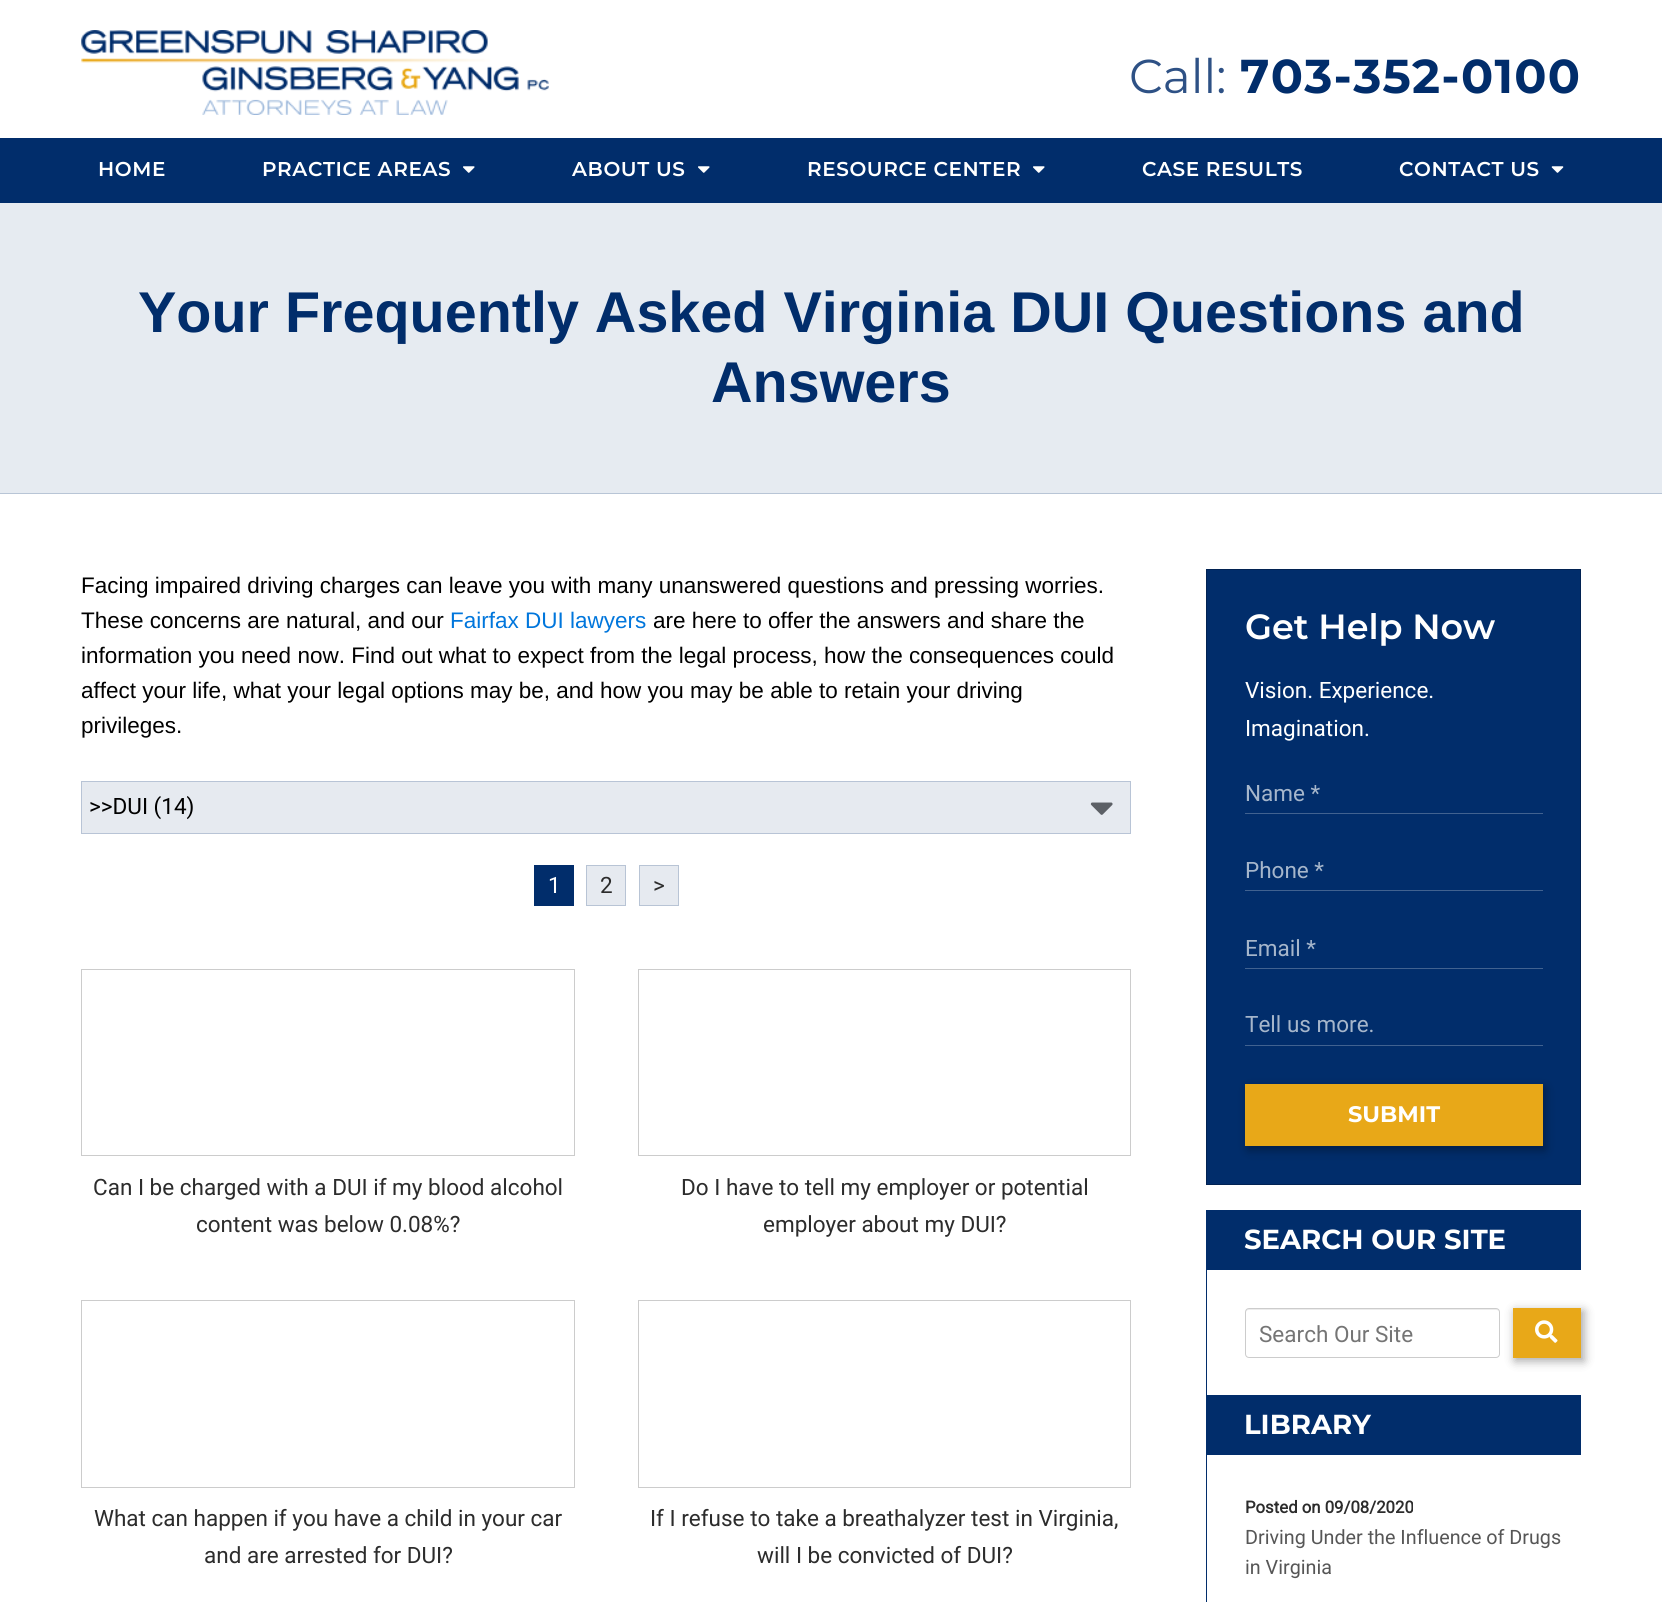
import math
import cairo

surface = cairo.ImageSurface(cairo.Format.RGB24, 1662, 1602)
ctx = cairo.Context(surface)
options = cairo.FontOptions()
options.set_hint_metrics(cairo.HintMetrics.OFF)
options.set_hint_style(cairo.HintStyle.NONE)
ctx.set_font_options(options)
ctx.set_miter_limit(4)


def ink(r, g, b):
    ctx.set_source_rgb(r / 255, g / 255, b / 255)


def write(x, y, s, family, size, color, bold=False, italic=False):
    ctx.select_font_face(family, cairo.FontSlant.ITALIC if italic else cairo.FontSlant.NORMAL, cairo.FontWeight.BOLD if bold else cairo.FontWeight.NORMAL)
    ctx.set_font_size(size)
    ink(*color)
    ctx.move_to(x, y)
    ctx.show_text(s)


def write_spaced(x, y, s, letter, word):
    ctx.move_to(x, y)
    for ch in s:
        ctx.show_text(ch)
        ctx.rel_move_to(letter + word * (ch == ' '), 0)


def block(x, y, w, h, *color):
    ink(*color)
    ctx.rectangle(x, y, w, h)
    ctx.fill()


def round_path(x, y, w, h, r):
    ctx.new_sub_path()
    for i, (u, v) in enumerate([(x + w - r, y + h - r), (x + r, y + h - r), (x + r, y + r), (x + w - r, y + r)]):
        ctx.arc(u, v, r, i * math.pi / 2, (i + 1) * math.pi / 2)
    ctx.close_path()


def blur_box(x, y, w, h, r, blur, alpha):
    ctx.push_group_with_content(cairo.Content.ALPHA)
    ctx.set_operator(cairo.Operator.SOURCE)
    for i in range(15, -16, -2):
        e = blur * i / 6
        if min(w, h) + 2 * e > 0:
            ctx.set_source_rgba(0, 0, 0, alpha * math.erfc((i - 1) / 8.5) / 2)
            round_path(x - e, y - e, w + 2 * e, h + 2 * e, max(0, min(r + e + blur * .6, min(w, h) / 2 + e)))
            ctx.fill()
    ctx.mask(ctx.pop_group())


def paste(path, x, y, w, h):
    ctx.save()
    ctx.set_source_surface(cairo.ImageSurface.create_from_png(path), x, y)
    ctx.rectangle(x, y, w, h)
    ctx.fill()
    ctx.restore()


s1 = dict(family="Montserrat", size=47.5, color=(46, 81, 133))
s2 = dict(family="Liberation Sans", size=57.5, color=(1, 45, 107), bold=True)
s3 = dict(family="Liberation Sans", size=22.5, color=(0, 0, 0))
s4 = dict(family="Liberation Sans", size=22.5, color=(0, 118, 220))
s5 = dict(family="Roboto", size=22.5, color=(0, 0, 0))
s6 = dict(family="Roboto", size=22.5, color=(255, 255, 255))
s7 = dict(family="Roboto", size=22.5, color=(44, 44, 44))
s8 = dict(family="Montserrat SemiBold", size=35, color=(255, 255, 255))
s9 = dict(family="Roboto", size=22.5, color=(166, 182, 203))
s10 = dict(family="Montserrat", size=22.5, color=(255, 255, 255), bold=True)
s11 = dict(family="Montserrat", size=27.5, color=(255, 255, 255), bold=True)
s12 = dict(family="Roboto", size=22.5, color=(117, 117, 117))
s13 = dict(family="Roboto", size=16.75, color=(44, 44, 44), bold=True)
s14 = dict(family="Roboto", size=19.75, color=(86, 86, 86))

ink(255, 255, 255)
ctx.paint()
block(82, 782, 1048, 51, 230, 234, 240)
paste("pic1.png", 81, 30, 468, 85)
write(1129, 93, "Call:", **s1)
ctx.select_font_face("Montserrat", cairo.FontSlant.NORMAL, cairo.FontWeight.BOLD)
ink(1, 45, 107)
write_spaced(1240, 93, "703-352-0100", 1.25, 0)
block(0, 138, 1662, 65, 1, 45, 107)
ctx.select_font_face("Montserrat SemiBold")
ctx.set_font_size(20)
ink(255, 255, 255)
write_spaced(98, 176, "HOME", 0.6, 0)
write_spaced(262, 176, "PRACTICE AREAS", 0.6, 0)
paste("pic2.png", 463, 166, 12, 7)
write_spaced(572, 176, "ABOUT US", 0.6, 0)
paste("pic2.png", 698, 166, 12, 7)
write_spaced(807, 176, "RESOURCE CENTER", 0.6, 0)
paste("pic2.png", 1033, 166, 12, 7)
write_spaced(1142, 176, "CASE RESULTS", 0.6, 0)
write_spaced(1399, 176, "CONTACT US", 0.6, 0)
paste("pic3.png", 1551, 166, 13, 7)
block(0, 203, 1662, 290, 230, 235, 241)
block(0, 493, 1662, 1, 184, 197, 214)
write(138, 332, "Your Frequently Asked Virginia DUI Questions and", **s2)
write(711, 402, "Answers", **s2)
write(81, 593, "Facing impaired driving charges can leave you with many unanswered questions and pressing worries.", **s3)
write(81, 628, "These concerns are natural, and our", **s3)
write(450, 628, "Fairfax DUI lawyers", **s4)
write(653, 628, "are here to offer the answers and share the", **s3)
write(81, 663, "information you need now. Find out what to expect from the legal process, how the consequences could", **s3)
write(81, 698, "affect your life, what your legal options may be, and how you may be able to retain your driving", **s3)
write(81, 733, "privileges.", **s3)
paste("pic4.png", 1090, 802, 23, 13)
ctx.rectangle(81.5, 781.5, 1049, 52)
ink(184, 196, 214)
ctx.set_line_width(1)
ctx.stroke()
write(89, 814, ">>DUI (14)", **s5)
block(534, 865, 40, 41, 1, 45, 107)
write(548, 893, "1", **s6)
ink(230, 234, 240)
ctx.rectangle(586.5, 865.5, 39, 40)
ctx.fill_preserve()
ink(184, 196, 213)
ctx.stroke()
write(600, 893, "2", **s7)
ink(230, 234, 240)
ctx.rectangle(639.5, 865.5, 39, 40)
ctx.fill_preserve()
ink(184, 196, 213)
ctx.stroke()
write(653, 893, ">", **s7)
ctx.rectangle(81.5, 969.5, 493, 186)
ink(204, 204, 204)
ctx.stroke()
write(93, 1195, "Can I be charged with a DUI if my blood alcohol", **s7)
write(196, 1232, "content was below 0.08%?", **s7)
ctx.rectangle(638.5, 969.5, 492, 186)
ink(204, 204, 204)
ctx.stroke()
write(681, 1195, "Do I have to tell my employer or potential", **s7)
write(763, 1232, "employer about my DUI?", **s7)
ctx.rectangle(81.5, 1300.5, 493, 187)
ink(204, 204, 204)
ctx.stroke()
write(94, 1526, "What can happen if you have a child in your car", **s7)
write(204, 1563, "and are arrested for DUI?", **s7)
ctx.rectangle(638.5, 1300.5, 492, 187)
ink(204, 204, 204)
ctx.stroke()
write(650, 1526, "If I refuse to take a breathalyzer test in Virginia,", **s7)
write(757, 1563, "will I be convicted of DUI?", **s7)
ink(1, 45, 107)
ctx.rectangle(1206.5, 569.5, 374, 615)
ctx.fill_preserve()
ink(1, 34, 82)
ctx.stroke()
write(1245, 639, "Get Help Now", **s8)
write(1245, 698, "Vision. Experience.", **s6)
write(1245, 736, "Imagination.", **s6)
block(1245, 813, 298, 1, 65, 98, 144)
write(1245, 801, "Name *", **s9)
block(1245, 890, 298, 1, 65, 98, 144)
write(1245, 878, "Phone *", **s9)
block(1245, 968, 298, 1, 65, 98, 144)
write(1245, 956, "Email *", **s9)
block(1245, 1045, 298, 1, 65, 98, 144)
write(1245, 1032, "Tell us more.", **s9)
ink(0, 0, 0)
blur_box(1248, 1088, 297, 62, 0, 5, 0.35)
block(1245, 1084, 298, 62, 232, 168, 24)
write(1348, 1122, "SUBMIT", **s10)
block(1206, 1210, 375, 60, 1, 45, 107)
write(1244, 1249, "SEARCH OUR SITE", **s11)
block(1206, 1270, 1, 125, 1, 45, 107)
ink(236, 236, 236)
ctx.new_path()
ctx.move_to(1249, 1310)
ctx.line_to(1496, 1310)
ctx.curve_to(1498, 1310, 1499, 1311, 1499, 1312)
ctx.curve_to(1499, 1310, 1498, 1309, 1496, 1309)
ctx.line_to(1248, 1309)
ctx.line_to(1246, 1310)
ctx.line_to(1246, 1312)
ctx.curve_to(1246, 1311, 1247, 1310, 1249, 1310)
ctx.close_path()
ctx.fill()
round_path(1245.5, 1308.5, 254, 49, 3.5)
ink(204, 204, 204)
ctx.stroke()
write(1259, 1342, "Search Our Site", **s12)
ink(0, 0, 0)
blur_box(1515, 1311, 69, 50, 0, 5, 0.35)
block(1513, 1308, 68, 50, 232, 168, 24)
paste("pic5.png", 1535, 1320, 23, 23)
block(1206, 1395, 375, 60, 1, 45, 107)
write(1244, 1434, "LIBRARY", **s11)
block(1206, 1455, 1, 147, 1, 45, 107)
write(1245, 1513, "Posted on 09/08/2020", **s13)
write(1245, 1544, "Driving Under the Influence of Drugs", **s14)
write(1245, 1574, "in Virginia", **s14)
surface.write_to_png("screenshot.png")
